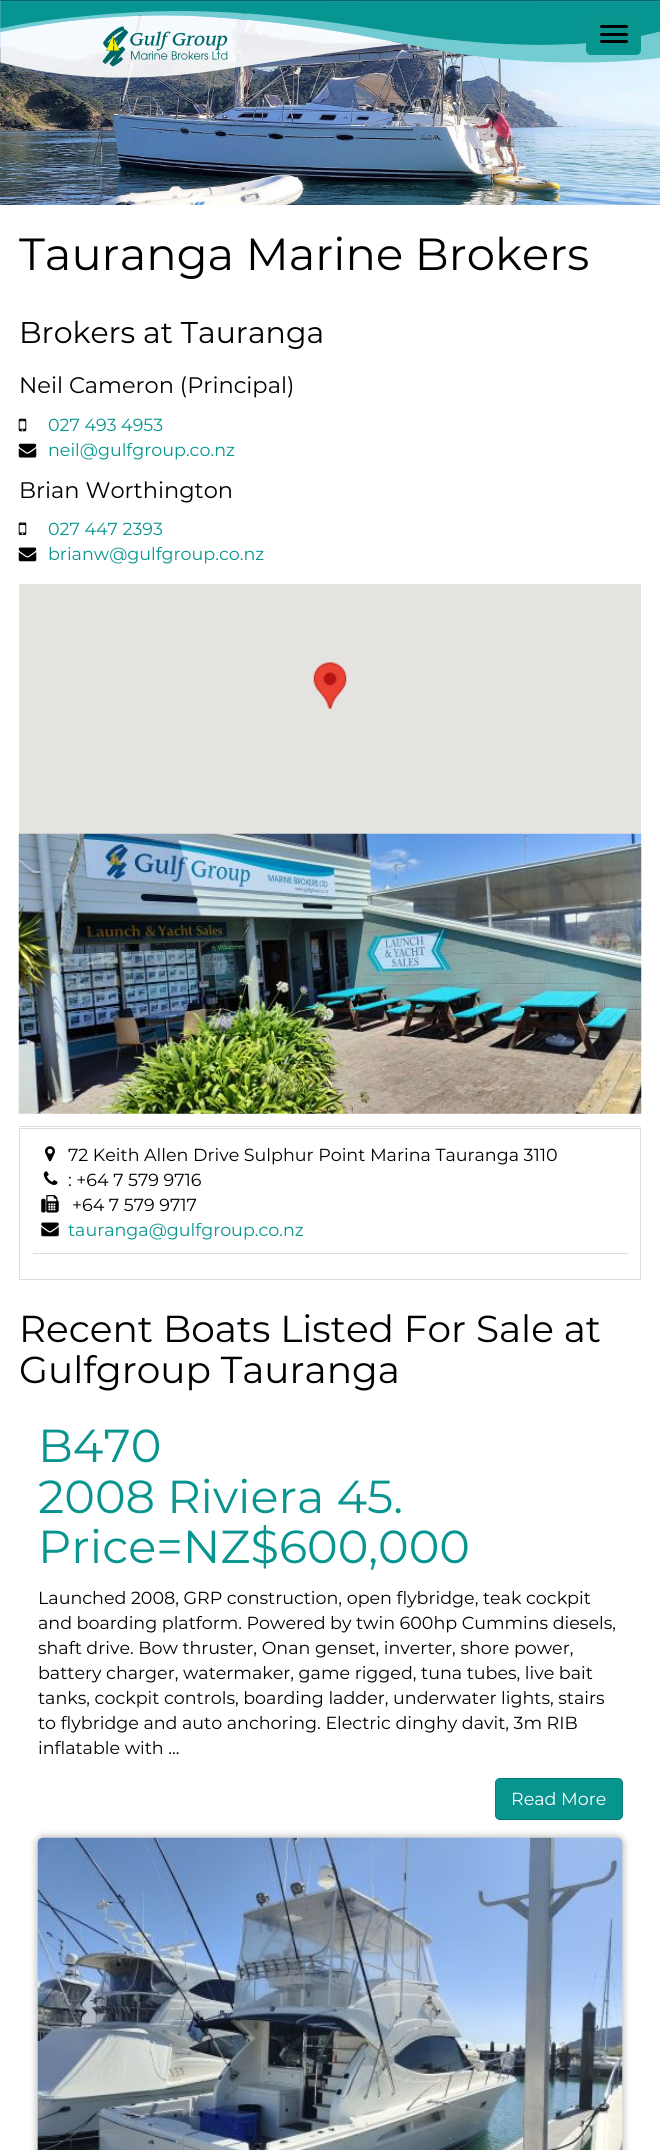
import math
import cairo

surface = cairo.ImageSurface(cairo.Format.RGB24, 660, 2150)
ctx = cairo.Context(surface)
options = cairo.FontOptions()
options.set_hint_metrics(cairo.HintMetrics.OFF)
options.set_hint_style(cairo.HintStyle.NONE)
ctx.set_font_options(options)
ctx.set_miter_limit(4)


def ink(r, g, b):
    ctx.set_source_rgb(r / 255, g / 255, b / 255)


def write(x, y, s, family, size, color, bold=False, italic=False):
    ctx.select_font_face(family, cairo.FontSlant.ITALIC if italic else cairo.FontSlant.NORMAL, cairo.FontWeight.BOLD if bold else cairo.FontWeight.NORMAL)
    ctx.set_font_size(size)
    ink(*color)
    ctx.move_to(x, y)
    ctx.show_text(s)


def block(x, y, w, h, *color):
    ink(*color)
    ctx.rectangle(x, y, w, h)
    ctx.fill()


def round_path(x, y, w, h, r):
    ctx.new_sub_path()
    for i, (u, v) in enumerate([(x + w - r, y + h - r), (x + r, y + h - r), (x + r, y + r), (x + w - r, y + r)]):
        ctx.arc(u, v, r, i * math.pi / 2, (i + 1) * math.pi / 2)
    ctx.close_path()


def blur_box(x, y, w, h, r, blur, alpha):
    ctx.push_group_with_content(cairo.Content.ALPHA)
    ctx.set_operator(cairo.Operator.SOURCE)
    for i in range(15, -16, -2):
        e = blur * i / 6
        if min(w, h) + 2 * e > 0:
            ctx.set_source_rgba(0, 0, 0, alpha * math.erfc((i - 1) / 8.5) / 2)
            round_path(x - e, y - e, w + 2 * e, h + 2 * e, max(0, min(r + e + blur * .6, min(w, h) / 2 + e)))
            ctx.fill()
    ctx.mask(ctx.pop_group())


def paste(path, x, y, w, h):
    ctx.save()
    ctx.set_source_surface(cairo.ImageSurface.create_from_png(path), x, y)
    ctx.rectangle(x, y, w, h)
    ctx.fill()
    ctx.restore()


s1 = dict(family="Montserrat", size=45, color=(0, 0, 0))
s2 = dict(family="Montserrat", size=30, color=(0, 0, 0))
s3 = dict(family="Montserrat", size=22.5, color=(0, 0, 0))
s4 = dict(family="Montserrat", size=17.5, color=(8, 149, 143))
s5 = dict(family="Montserrat", size=17.5, color=(0, 0, 0))
s6 = dict(family="Montserrat", size=37.5, color=(0, 0, 0))
s7 = dict(family="Montserrat", size=46.25, color=(8, 149, 143))
s8 = dict(family="Montserrat", size=17.5, color=(255, 255, 255))

ink(255, 255, 255)
ctx.paint()
paste("pic1.png", 0, 1, 660, 204)
paste("pic2.png", 0, 1, 660, 77)
ink(8, 149, 143)
round_path(586, 13, 55, 42, 5)
ctx.fill()
ink(0, 0, 0)
round_path(600, 25, 28, 3, 1.5)
ctx.fill()
round_path(600, 33, 28, 3, 1.5)
ctx.fill()
round_path(600, 40, 28, 3, 1.5)
ctx.fill()
block(0, 0, 660, 1, 0, 105, 110)
paste("pic3.png", 102, 26, 126, 41)
write(19, 270, "Tauranga Marine Brokers", **s1)
write(19, 343, "Brokers at Tauranga", **s2)
write(19, 393, "Neil Cameron (Principal)", **s3)
paste("pic4.png", 18, 418, 9, 14)
write(48, 431, "027 493 4953", **s4)
paste("pic5.png", 18, 443, 19, 15)
write(48, 456, "neil@gulfgroup.co.nz", **s4)
write(19, 498, "Brian Worthington", **s3)
paste("pic6.png", 18, 522, 9, 13)
write(48, 535, "027 447 2393", **s4)
paste("pic7.png", 18, 547, 19, 15)
write(48, 560, "brianw@gulfgroup.co.nz", **s4)
block(19, 584, 622, 250, 229, 227, 223)
paste("pic8.png", 313, 662, 34, 47)
paste("pic9.png", 18, 833, 624, 281)
block(19, 1126, 622, 1, 221, 221, 221)
ctx.rectangle(19.5, 1128.5, 621, 151)
ctx.set_line_width(1)
ctx.stroke()
paste("pic10.png", 45, 1146, 10, 16)
write(68, 1161, "72 Keith Allen Drive Sulphur Point Marina Tauranga 3110", **s5)
paste("pic11.png", 43, 1171, 15, 14)
write(68, 1186, ": +64 7 579 9716", **s5)
paste("pic12.png", 41, 1195, 18, 18)
write(72, 1211, "+64 7 579 9717", **s5)
paste("pic13.png", 41, 1222, 18, 15)
write(68, 1236, "tauranga@gulfgroup.co.nz", **s4)
block(33, 1253, 595, 1, 221, 221, 221)
write(19, 1342, "Recent Boats Listed For Sale at", **s6)
write(19, 1383, "Gulfgroup Tauranga", **s6)
write(38, 1462, "B470", **s7)
write(38, 1513, "2008 Riviera 45.", **s7)
write(38, 1563, "Price=NZ$600,000", **s7)
write(38, 1604, "Launched 2008, GRP construction, open flybridge, teak cockpit", **s5)
write(38, 1629, "and boarding platform. Powered by twin 600hp Cummins diesels,", **s5)
write(38, 1654, "shaft drive. Bow thruster, Onan genset, inverter, shore power,", **s5)
write(38, 1679, "battery charger, watermaker, game rigged, tuna tubes, live bait", **s5)
write(38, 1704, "tanks, cockpit controls, boarding ladder, underwater lights, stairs", **s5)
write(38, 1729, "to flybridge and auto anchoring. Electric dinghy davit, 3m RIB", **s5)
write(38, 1754, "inflatable with ...", **s5)
ink(8, 149, 143)
round_path(495.5, 1778.5, 127, 41, 4.5)
ctx.fill_preserve()
ink(7, 125, 120)
ctx.stroke()
write(511, 1805, "Read More", **s8)
ink(0, 0, 0)
blur_box(35, 1835, 590, 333, 9, 3, 0.2)
paste("pic14.png", 37, 1837, 586, 313)
surface.write_to_png("screenshot.png")
